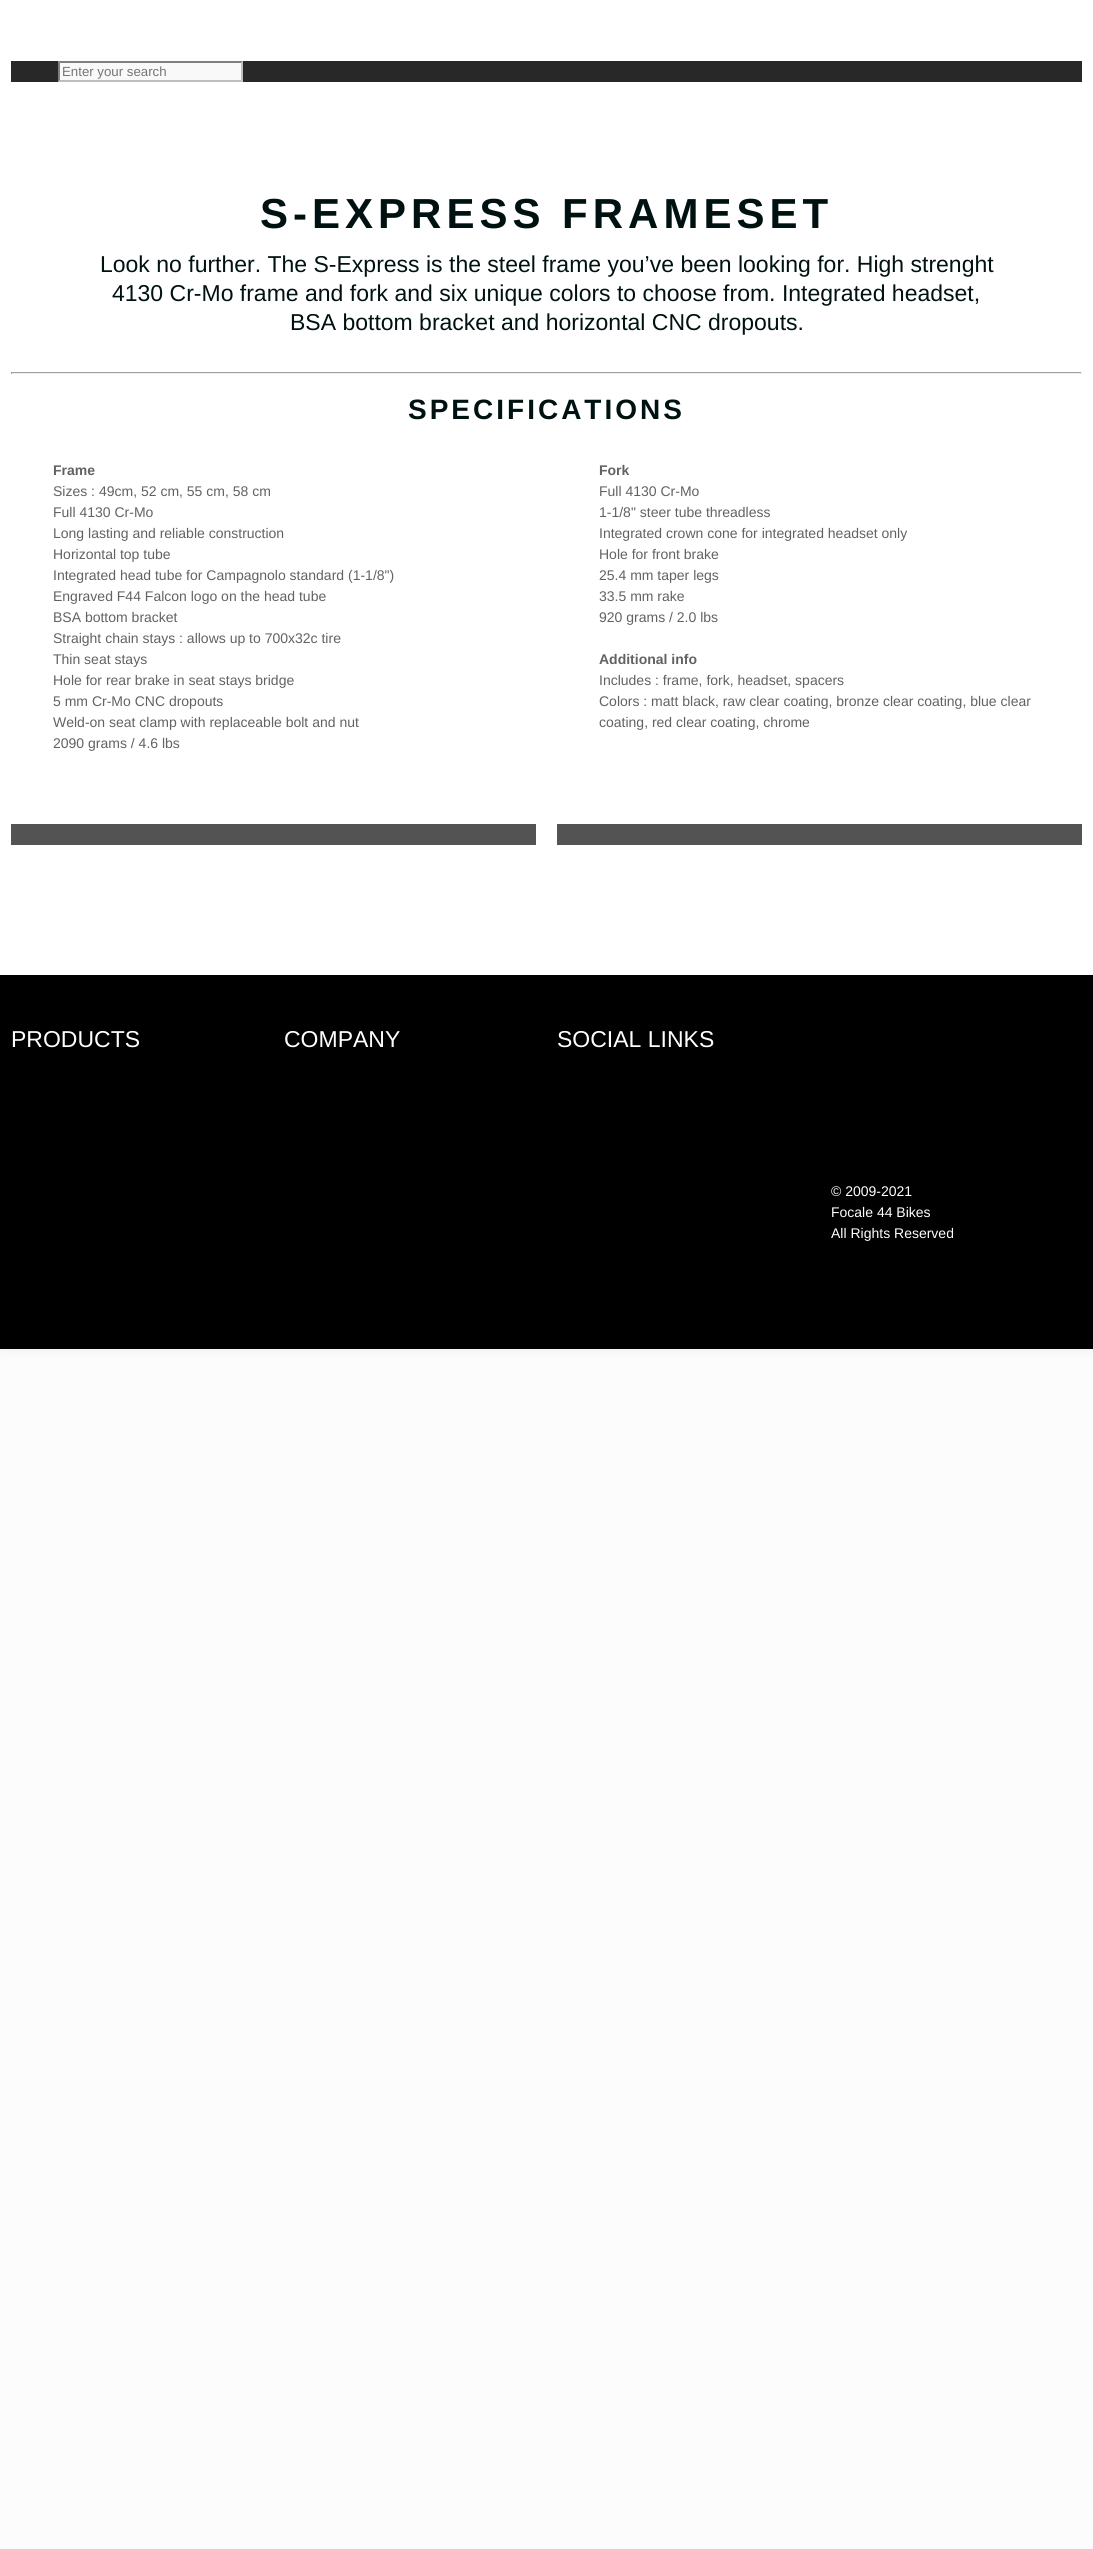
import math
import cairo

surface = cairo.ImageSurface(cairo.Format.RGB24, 1093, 2549)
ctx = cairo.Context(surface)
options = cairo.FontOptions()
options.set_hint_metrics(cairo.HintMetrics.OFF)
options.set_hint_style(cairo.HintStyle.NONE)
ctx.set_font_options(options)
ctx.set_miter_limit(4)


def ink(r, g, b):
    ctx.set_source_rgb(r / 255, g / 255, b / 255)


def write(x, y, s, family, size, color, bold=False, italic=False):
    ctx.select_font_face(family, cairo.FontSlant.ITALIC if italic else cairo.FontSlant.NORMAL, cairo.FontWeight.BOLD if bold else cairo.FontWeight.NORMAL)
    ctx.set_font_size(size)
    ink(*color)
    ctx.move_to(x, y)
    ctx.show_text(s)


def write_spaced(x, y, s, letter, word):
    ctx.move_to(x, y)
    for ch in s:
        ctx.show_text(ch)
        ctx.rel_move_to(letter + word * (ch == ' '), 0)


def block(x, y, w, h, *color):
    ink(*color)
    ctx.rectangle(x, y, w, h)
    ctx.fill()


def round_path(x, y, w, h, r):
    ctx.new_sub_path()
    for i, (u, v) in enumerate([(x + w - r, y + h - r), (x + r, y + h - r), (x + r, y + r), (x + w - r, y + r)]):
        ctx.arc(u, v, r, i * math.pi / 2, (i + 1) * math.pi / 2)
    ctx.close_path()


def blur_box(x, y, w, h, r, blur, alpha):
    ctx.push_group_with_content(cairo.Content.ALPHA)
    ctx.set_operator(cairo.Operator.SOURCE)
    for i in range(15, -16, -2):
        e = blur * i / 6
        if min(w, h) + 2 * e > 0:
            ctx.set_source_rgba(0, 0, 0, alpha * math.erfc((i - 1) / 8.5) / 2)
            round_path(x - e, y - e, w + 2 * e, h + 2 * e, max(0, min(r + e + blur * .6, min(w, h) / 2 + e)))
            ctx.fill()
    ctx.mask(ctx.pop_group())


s1 = dict(family="Liberation Sans", size=13.25, color=(117, 117, 117))
s2 = dict(family="Liberation Sans", size=23, color=(0, 17, 17))
s3 = dict(family="Liberation Sans", size=14, color=(98, 98, 98), bold=True)
s4 = dict(family="Liberation Sans", size=14, color=(98, 98, 98))
s5 = dict(family="Liberation Sans", size=23, color=(255, 255, 255))
s6 = dict(family="Liberation Sans", size=14, color=(255, 255, 255))

ink(252, 252, 252)
ctx.paint()
ink(0, 0, 0)
blur_box(0, 0, 1093, 1349, 0, 7.5, 0.06)
block(0, 0, 1093, 975, 255, 255, 255)
block(11, 61, 1071, 21, 40, 40, 40)
block(58, 61, 185, 21, 249, 249, 250)
ink(127, 127, 127)
ctx.new_path()
ctx.move_to(58, 61)
ctx.line_to(243, 61)
ctx.line_to(241, 63)
ctx.line_to(60, 63)
ctx.close_path()
ctx.fill()
ink(190, 190, 191)
ctx.new_path()
ctx.move_to(243, 61)
ctx.line_to(243, 82)
ctx.line_to(241, 80)
ctx.line_to(241, 63)
ctx.close_path()
ctx.fill()
ctx.new_path()
ctx.move_to(243, 82)
ctx.line_to(58, 82)
ctx.line_to(60, 80)
ctx.line_to(241, 80)
ctx.close_path()
ctx.fill()
ink(127, 127, 127)
ctx.new_path()
ctx.move_to(58, 82)
ctx.line_to(58, 61)
ctx.line_to(60, 63)
ctx.line_to(60, 80)
ctx.close_path()
ctx.fill()
write(62, 76, "Enter your search", **s1)
ctx.select_font_face("Liberation Sans", cairo.FontSlant.NORMAL, cairo.FontWeight.BOLD)
ctx.set_font_size(42)
ink(0, 17, 17)
write_spaced(260, 228, "S-EXPRESS FRAMESET", 5, 0)
write(100, 272, "Look no further. The S-Express is the steel frame you’ve been looking for. High strenght", **s2)
write(112, 301, "4130 Cr-Mo frame and fork and six unique colors to choose from. Integrated headset,", **s2)
write(290, 330, "BSA bottom bracket and horizontal CNC dropouts.", **s2)
block(11, 372, 1071, 1, 159, 159, 159)
block(1081, 372, 1, 2, 238, 238, 238)
block(11, 373, 1071, 1, 238, 238, 238)
block(11, 372, 1, 2, 159, 159, 159)
ctx.select_font_face("Liberation Sans", cairo.FontSlant.NORMAL, cairo.FontWeight.BOLD)
ctx.set_font_size(28)
ink(0, 17, 17)
write_spaced(408, 419, "SPECIFICATIONS", 3, 0)
write(53, 475, "Frame", **s3)
write(53, 496, "Sizes : 49cm, 52 cm, 55 cm, 58 cm", **s4)
write(53, 517, "Full 4130 Cr-Mo", **s4)
write(53, 538, "Long lasting and reliable construction", **s4)
write(53, 559, "Horizontal top tube", **s4)
write(53, 580, "Integrated head tube for Campagnolo standard (1-1/8\")", **s4)
write(53, 601, "Engraved F44 Falcon logo on the head tube", **s4)
write(53, 622, "BSA bottom bracket", **s4)
write(53, 643, "Straight chain stays : allows up to 700x32c tire", **s4)
write(53, 664, "Thin seat stays", **s4)
write(53, 685, "Hole for rear brake in seat stays bridge", **s4)
write(53, 706, "5 mm Cr-Mo CNC dropouts", **s4)
write(53, 727, "Weld-on seat clamp with replaceable bolt and nut", **s4)
write(53, 748, "2090 grams / 4.6 lbs", **s4)
write(599, 475, "Fork", **s3)
write(599, 496, "Full 4130 Cr-Mo", **s4)
write(599, 517, "1-1/8\" steer tube threadless", **s4)
write(599, 538, "Integrated crown cone for integrated headset only", **s4)
write(599, 559, "Hole for front brake", **s4)
write(599, 580, "25.4 mm taper legs", **s4)
write(599, 601, "33.5 mm rake", **s4)
write(599, 622, "920 grams / 2.0 lbs", **s4)
write(599, 664, "Additional info", **s3)
write(599, 685, "Includes : frame, fork, headset, spacers", **s4)
write(599, 706, "Colors : matt black, raw clear coating, bronze clear coating, blue clear", **s4)
write(599, 727, "coating, red clear coating, chrome", **s4)
block(11, 824, 525, 21, 83, 83, 83)
block(557, 824, 525, 21, 83, 83, 83)
block(0, 975, 1093, 374, 0, 0, 0)
write(11, 1047, "PRODUCTS", **s5)
write(284, 1047, "COMPANY", **s5)
write(557, 1047, "SOCIAL LINKS", **s5)
write(831, 1196, "© 2009-2021", **s6)
write(831, 1217, "Focale 44 Bikes", **s6)
write(831, 1238, "All Rights Reserved", **s6)
surface.write_to_png("screenshot.png")
